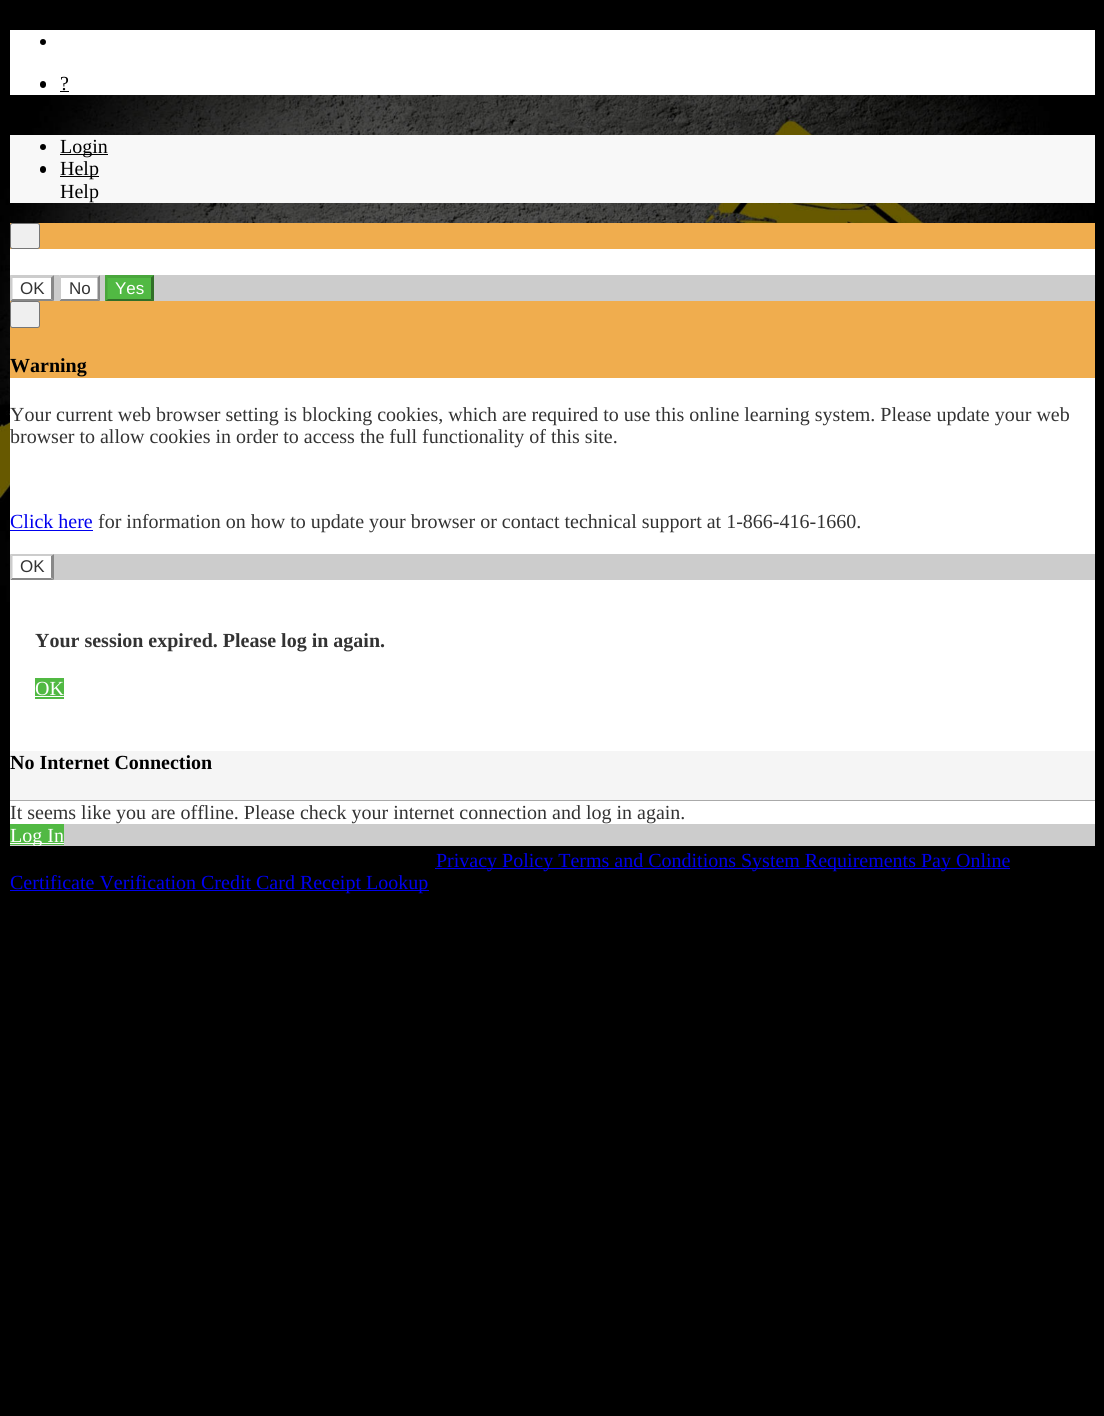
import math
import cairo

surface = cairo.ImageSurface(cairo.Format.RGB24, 1104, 1416)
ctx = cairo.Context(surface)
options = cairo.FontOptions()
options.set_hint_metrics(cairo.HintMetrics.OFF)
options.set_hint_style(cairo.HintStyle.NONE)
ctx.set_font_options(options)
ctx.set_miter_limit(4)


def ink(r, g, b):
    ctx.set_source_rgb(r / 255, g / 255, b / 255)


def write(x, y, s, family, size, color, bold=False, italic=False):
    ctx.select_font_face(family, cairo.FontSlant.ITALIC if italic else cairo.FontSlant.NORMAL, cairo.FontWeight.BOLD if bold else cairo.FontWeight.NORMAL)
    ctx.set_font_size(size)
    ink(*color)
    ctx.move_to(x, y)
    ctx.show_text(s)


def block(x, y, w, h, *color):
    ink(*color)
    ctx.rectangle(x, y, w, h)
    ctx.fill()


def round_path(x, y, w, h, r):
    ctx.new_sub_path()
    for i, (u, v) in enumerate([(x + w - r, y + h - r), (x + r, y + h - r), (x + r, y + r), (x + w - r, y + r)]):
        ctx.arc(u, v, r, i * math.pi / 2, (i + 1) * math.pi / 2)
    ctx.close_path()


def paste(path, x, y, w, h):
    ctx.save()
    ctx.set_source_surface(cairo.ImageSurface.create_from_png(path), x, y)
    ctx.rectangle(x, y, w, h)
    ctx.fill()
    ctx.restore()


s1 = dict(family="Liberation Serif", size=20, color=(0, 0, 0))
s2 = dict(family="Liberation Sans", size=17, color=(51, 51, 51))
s3 = dict(family="Liberation Sans", size=17, color=(255, 255, 255))
s4 = dict(family="Liberation Serif", size=20, color=(0, 0, 0), bold=True)
s5 = dict(family="Liberation Serif", size=20, color=(51, 51, 51))
s6 = dict(family="Liberation Serif", size=20, color=(0, 0, 238))
s7 = dict(family="Liberation Serif", size=20, color=(51, 51, 51), bold=True)
s8 = dict(family="Liberation Serif", size=20, color=(255, 255, 255))

ink(0, 0, 0)
ctx.paint()
paste("pic1.png", 0, 88, 1096, 623)
block(10, 30, 1085, 65, 255, 255, 255)
ink(0, 0, 0)
ctx.arc(43, 42, 3, 0, 2 * math.pi)
ctx.fill()
round_path(40, 81, 6, 7, 3)
ctx.fill()
write(60, 90, "?", **s1)
block(60, 91, 9, 1, 0, 0, 0)
block(10, 135, 1085, 68, 248, 248, 248)
ink(0, 0, 0)
ctx.new_path()
ctx.arc(43, 147, 3, 0, 2 * math.pi)
ctx.fill()
block(60, 154, 48, 1, 0, 0, 0)
write(60, 153, "Login", **s1)
round_path(40, 166, 6, 7, 3)
ctx.fill()
block(60, 176, 39, 1, 0, 0, 0)
write(60, 175, "Help", **s1)
write(60, 198, "Help", **s1)
block(10, 249, 1085, 26, 255, 255, 255)
block(10, 223, 1085, 26, 240, 173, 78)
ink(239, 239, 239)
round_path(10.5, 223.5, 29, 25, 2)
ctx.fill_preserve()
ink(118, 118, 118)
ctx.set_line_width(1)
ctx.stroke()
block(54, 275, 1041, 26, 204, 204, 204)
block(10, 275, 44, 26, 255, 255, 255)
ink(204, 204, 204)
ctx.new_path()
ctx.move_to(10, 275)
ctx.line_to(54, 275)
ctx.line_to(51, 278)
ctx.line_to(12, 278)
ctx.close_path()
ctx.fill()
ink(136, 136, 136)
ctx.new_path()
ctx.move_to(54, 275)
ctx.line_to(54, 301)
ctx.line_to(51, 299)
ctx.line_to(51, 277.5)
ctx.close_path()
ctx.fill()
ctx.new_path()
ctx.move_to(54, 301)
ctx.line_to(10, 301)
ctx.line_to(12, 299)
ctx.line_to(51, 299)
ctx.close_path()
ctx.fill()
ink(204, 204, 204)
ctx.new_path()
ctx.move_to(10, 301)
ctx.line_to(10, 275)
ctx.line_to(12.5, 277.5)
ctx.line_to(12.5, 299)
ctx.close_path()
ctx.fill()
write(20, 294, "OK", **s2)
block(59, 275, 41, 26, 255, 255, 255)
ink(204, 204, 204)
ctx.new_path()
ctx.move_to(59, 275)
ctx.line_to(100, 275)
ctx.line_to(98, 278)
ctx.line_to(61, 278)
ctx.close_path()
ctx.fill()
ink(136, 136, 136)
ctx.new_path()
ctx.move_to(100, 275)
ctx.line_to(100, 301)
ctx.line_to(97.5, 299)
ctx.line_to(97.5, 277.5)
ctx.close_path()
ctx.fill()
ctx.new_path()
ctx.move_to(100, 301)
ctx.line_to(59, 301)
ctx.line_to(61, 299)
ctx.line_to(98, 299)
ctx.close_path()
ctx.fill()
ink(204, 204, 204)
ctx.new_path()
ctx.move_to(59, 301)
ctx.line_to(59, 275)
ctx.line_to(61, 277.5)
ctx.line_to(61, 299)
ctx.close_path()
ctx.fill()
write(69, 294, "No", **s2)
block(105, 275, 49, 26, 81, 185, 67)
ink(73, 166, 60)
ctx.new_path()
ctx.move_to(105, 275)
ctx.line_to(154, 275)
ctx.line_to(151, 278)
ctx.line_to(108, 278)
ctx.close_path()
ctx.fill()
ink(49, 111, 40)
ctx.new_path()
ctx.move_to(154, 275)
ctx.line_to(154, 301)
ctx.line_to(151, 299)
ctx.line_to(151, 277.5)
ctx.close_path()
ctx.fill()
ctx.new_path()
ctx.move_to(154, 301)
ctx.line_to(105, 301)
ctx.line_to(108, 299)
ctx.line_to(151, 299)
ctx.close_path()
ctx.fill()
ink(73, 166, 60)
ctx.new_path()
ctx.move_to(105, 301)
ctx.line_to(105, 275)
ctx.line_to(107.5, 277.5)
ctx.line_to(107.5, 299)
ctx.close_path()
ctx.fill()
write(115, 294, "Yes", **s3)
block(10, 378, 1085, 176, 255, 255, 255)
block(10, 301, 1085, 77, 240, 173, 78)
ink(239, 239, 239)
round_path(10.5, 301.5, 29, 26, 2)
ctx.fill_preserve()
ink(118, 118, 118)
ctx.stroke()
write(10, 372, "Warning", **s4)
write(10, 421, "Your current web browser setting is blocking cookies, which are required to use this online learning system. Please update your web", **s5)
write(10, 443, "browser to allow cookies in order to access the full functionality of this site.", **s5)
write(10, 528, "Click here", **s6)
block(10, 530, 83, 1, 0, 0, 238)
write(98, 528, "for information on how to update your browser or contact technical support at 1-866-416-1660.", **s5)
block(54, 554, 1041, 26, 204, 204, 204)
block(10, 554, 44, 26, 255, 255, 255)
ink(204, 204, 204)
ctx.new_path()
ctx.move_to(10, 554)
ctx.line_to(54, 554)
ctx.line_to(51, 556)
ctx.line_to(12, 556)
ctx.close_path()
ctx.fill()
ink(136, 136, 136)
ctx.new_path()
ctx.move_to(54, 554)
ctx.line_to(54, 580)
ctx.line_to(51, 577.5)
ctx.line_to(51, 556)
ctx.close_path()
ctx.fill()
ctx.new_path()
ctx.move_to(54, 580)
ctx.line_to(10, 580)
ctx.line_to(12, 578)
ctx.line_to(51, 578)
ctx.close_path()
ctx.fill()
ink(204, 204, 204)
ctx.new_path()
ctx.move_to(10, 580)
ctx.line_to(10, 554)
ctx.line_to(12.5, 556)
ctx.line_to(12.5, 577.5)
ctx.close_path()
ctx.fill()
write(20, 572, "OK", **s2)
block(10, 580, 1085, 244, 255, 255, 255)
write(35, 647, "Your session expired. Please log in again.", **s7)
block(35, 678, 29, 21, 81, 185, 67)
write(35, 695, "OK", **s8)
block(35, 696, 29, 1, 255, 255, 255)
block(10, 751, 1085, 49, 245, 245, 245)
block(10, 800, 1085, 1, 170, 170, 170)
write(10, 769, "No Internet Connection", **s4)
write(10, 819, "It seems like you are offline. Please check your internet connection and log in again.", **s5)
block(10, 824, 1085, 22, 204, 204, 204)
block(10, 824, 54, 21, 81, 185, 67)
block(10, 843, 54, 1, 255, 255, 255)
ctx.save()
ctx.rectangle(10, 725, 1085, 121)
ctx.clip()
write(10, 842, "Log In", **s8)
ctx.restore()
block(435, 868, 575, 1, 0, 0, 238)
write(436, 867, "Privacy Policy Terms and Conditions System Requirements Pay Online", **s6)
block(10, 890, 419, 1, 0, 0, 238)
write(10, 889, "Certificate Verification Credit Card Receipt Lookup", **s6)
surface.write_to_png("screenshot.png")
